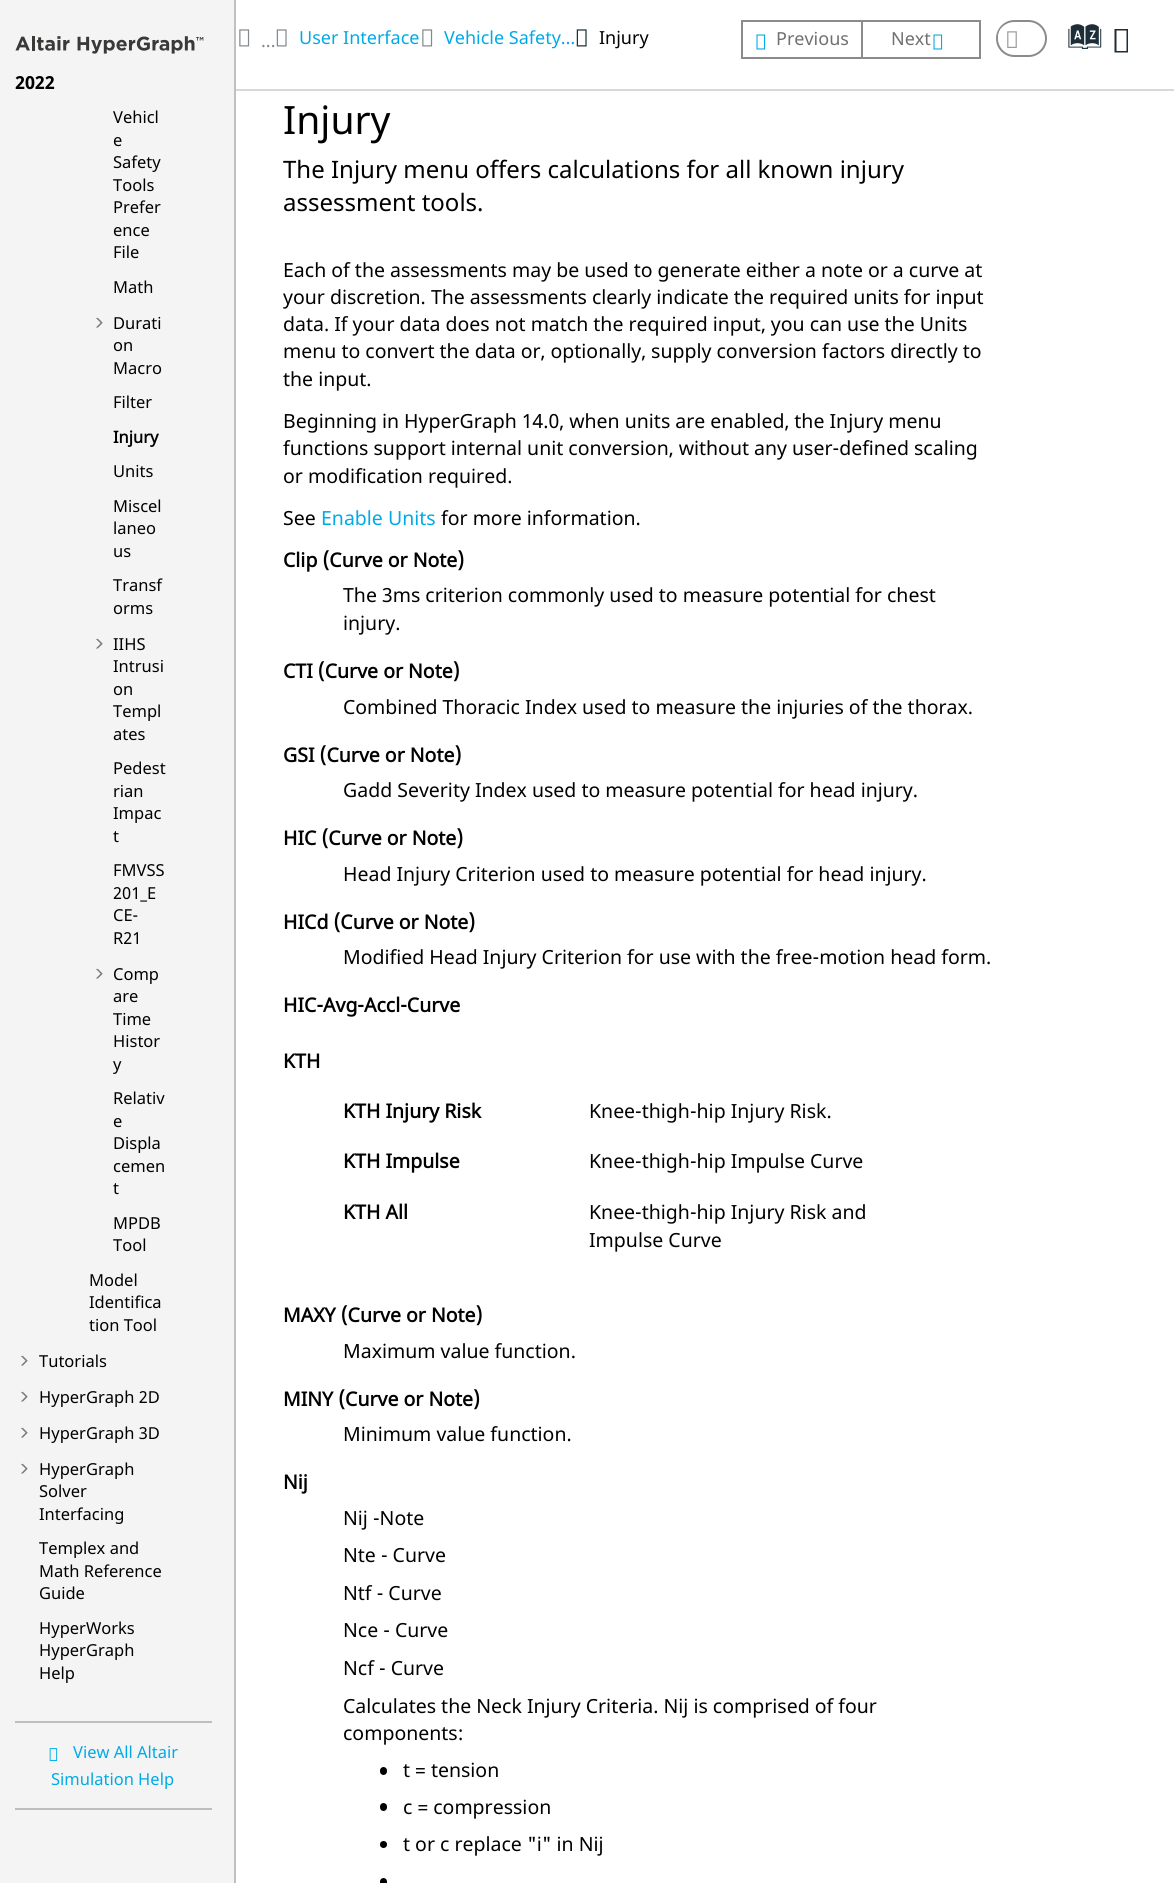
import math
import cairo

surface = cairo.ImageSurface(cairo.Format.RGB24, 1174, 1883)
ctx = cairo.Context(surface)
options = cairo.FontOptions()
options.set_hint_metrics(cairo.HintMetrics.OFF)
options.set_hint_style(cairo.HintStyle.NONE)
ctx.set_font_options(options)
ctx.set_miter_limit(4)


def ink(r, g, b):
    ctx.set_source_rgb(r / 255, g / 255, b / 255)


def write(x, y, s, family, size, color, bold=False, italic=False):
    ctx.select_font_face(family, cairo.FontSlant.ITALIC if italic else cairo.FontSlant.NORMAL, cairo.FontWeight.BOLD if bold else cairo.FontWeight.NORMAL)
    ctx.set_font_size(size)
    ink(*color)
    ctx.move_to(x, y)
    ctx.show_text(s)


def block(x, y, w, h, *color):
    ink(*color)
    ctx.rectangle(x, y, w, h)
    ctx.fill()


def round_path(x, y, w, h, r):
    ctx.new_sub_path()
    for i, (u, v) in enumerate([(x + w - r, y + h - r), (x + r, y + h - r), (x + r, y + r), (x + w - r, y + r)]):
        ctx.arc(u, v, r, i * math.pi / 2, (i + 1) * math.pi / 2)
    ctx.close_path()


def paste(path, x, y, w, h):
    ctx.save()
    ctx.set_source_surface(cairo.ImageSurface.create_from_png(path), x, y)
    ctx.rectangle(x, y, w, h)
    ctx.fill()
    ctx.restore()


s1 = dict(family="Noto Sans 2", size=18, color=(0, 0, 0), bold=True)
s2 = dict(family="Noto Sans", size=16.5, color=(0, 0, 0))
s3 = dict(family="Noto Sans", size=16.5, color=(0, 0, 0), bold=True)
s4 = dict(family="Noto Sans", size=16.5, color=(0, 170, 230))
s5 = dict(family="Noto Sans", size=18, color=(133, 137, 141))
s6 = dict(family="Noto Sans", size=18, color=(0, 170, 230))
s7 = dict(family="Noto Sans", size=18, color=(0, 0, 0))
s8 = dict(family="Noto Sans", size=18, color=(112, 112, 112))
s9 = dict(family="Oxygen", size=35, color=(29, 46, 56))
s10 = dict(family="Noto Sans", size=39, color=(0, 0, 0))
s11 = dict(family="Noto Sans", size=24, color=(0, 0, 0))
s12 = dict(family="Noto Sans", size=19.5, color=(0, 0, 0))
s13 = dict(family="Noto Sans", size=19.5, color=(0, 170, 230))
s14 = dict(family="Noto Sans", size=19.5, color=(0, 0, 0), bold=True)

ink(255, 255, 255)
ctx.paint()
block(0, 0, 234, 1883, 244, 244, 244)
block(234, 0, 2, 1883, 192, 192, 192)
paste("pic1.png", 15, 36, 189, 18)
write(15, 89, "2022", **s1)
write(113, 123, "Vehicl", **s2)
write(113, 146, "e", **s2)
write(113, 168, "Safety", **s2)
write(113, 191, "Tools", **s2)
write(113, 213, "Prefer", **s2)
write(113, 236, "ence", **s2)
write(113, 258, "File", **s2)
write(113, 293, "Math", **s2)
paste("pic2.png", 96, 317, 7, 11)
write(113, 329, "Durati", **s2)
write(113, 351, "on", **s2)
write(113, 374, "Macro", **s2)
write(113, 408, "Filter", **s2)
write(113, 443, "Injury", **s3)
write(113, 477, "Units", **s2)
write(113, 512, "Miscel", **s2)
write(113, 534, "laneo", **s2)
write(113, 557, "us", **s2)
write(113, 591, "Transf", **s2)
write(113, 614, "orms", **s2)
paste("pic2.png", 96, 638, 7, 11)
write(113, 650, "IIHS", **s2)
write(113, 672, "Intrusi", **s2)
write(113, 695, "on", **s2)
write(113, 717, "Templ", **s2)
write(113, 740, "ates", **s2)
write(113, 774, "Pedest", **s2)
write(113, 797, "rian", **s2)
write(113, 819, "Impac", **s2)
write(113, 842, "t", **s2)
write(113, 876, "FMVSS", **s2)
write(113, 899, "201_E", **s2)
write(113, 921, "CE-", **s2)
write(113, 944, "R21", **s2)
paste("pic2.png", 96, 968, 7, 11)
write(113, 980, "Comp", **s2)
write(113, 1002, "are", **s2)
write(113, 1025, "Time", **s2)
write(113, 1047, "Histor", **s2)
write(113, 1070, "y", **s2)
write(113, 1104, "Relativ", **s2)
write(113, 1127, "e", **s2)
write(113, 1149, "Displa", **s2)
write(113, 1172, "cemen", **s2)
write(113, 1194, "t", **s2)
write(113, 1229, "MPDB", **s2)
write(113, 1251, "Tool", **s2)
write(89, 1286, "Model", **s2)
write(89, 1308, "Identifica", **s2)
write(89, 1331, "tion Tool", **s2)
paste("pic2.png", 21, 1355, 7, 11)
write(39, 1367, "Tutorials", **s2)
paste("pic2.png", 21, 1391, 7, 11)
write(39, 1403, "HyperGraph 2D", **s2)
paste("pic2.png", 21, 1427, 7, 11)
write(39, 1439, "HyperGraph 3D", **s2)
paste("pic2.png", 21, 1463, 7, 11)
write(39, 1475, "HyperGraph", **s2)
write(39, 1497, "Solver", **s2)
write(39, 1520, "Interfacing", **s2)
write(39, 1554, "Templex and", **s2)
write(39, 1577, "Math Reference", **s2)
write(39, 1599, "Guide", **s2)
write(39, 1634, "HyperWorks", **s2)
write(39, 1656, "HyperGraph", **s2)
write(39, 1679, "Help", **s2)
block(15, 1721, 197, 2, 190, 190, 190)
block(15, 1808, 197, 2, 190, 190, 190)
paste("pic3.png", 49, 1748, 9, 13)
write(73, 1758, "View All Altair", **s4)
write(51, 1785, "Simulation Help", **s4)
block(236, 89, 938, 2, 216, 216, 216)
paste("pic4.png", 239, 29, 11, 18)
write(261, 47, "...", **s5)
paste("pic5.png", 276, 29, 11, 18)
write(299, 44, "User Interface", **s6)
paste("pic4.png", 422, 29, 11, 18)
write(444, 44, "Vehicle Safety…", **s6)
paste("pic6.png", 576, 29, 11, 18)
write(599, 44, "Injury", **s7)
block(741, 20, 120, 2, 139, 139, 139)
block(741, 57, 120, 2, 139, 139, 139)
block(741, 20, 2, 39, 139, 139, 139)
paste("pic7.png", 756, 34, 10, 16)
write(776, 45, "Previous", **s8)
ctx.rectangle(862, 21, 118, 37)
ink(139, 139, 139)
ctx.stroke()
write(891, 45, "Next", **s8)
paste("pic7.png", 933, 34, 10, 16)
round_path(997, 21, 49, 35, 17.5)
ink(139, 139, 139)
ctx.stroke()
ink(255, 255, 255)
round_path(998, 23, 30, 28, 14)
ctx.fill()
paste("pic8.png", 1007, 31, 10, 17)
write(1072, 53, "a", **s9)
ctx.new_path()
ctx.move_to(1114.5, 52.5)
ctx.line_to(1114.5, 29)
ctx.line_to(1128, 29)
ctx.line_to(1128, 52.5)
ctx.close_path()
ctx.move_to(1116.5, 51)
ctx.line_to(1126.5, 51)
ctx.line_to(1126.5, 30.5)
ctx.line_to(1116.5, 30.5)
ctx.close_path()
ctx.fill()
write(283, 134, "Injury", **s10)
write(283, 178, "The Injury menu offers calculations for all known injury", **s11)
write(283, 211, "assessment tools.", **s11)
write(283, 277, "Each of the assessments may be used to generate either a note or a curve at", **s12)
write(283, 304, "your discretion. The assessments clearly indicate the required units for input", **s12)
write(283, 331, "data. If your data does not match the required input, you can use the Units", **s12)
write(283, 358, "menu to convert the data or, optionally, supply conversion factors directly to", **s12)
write(283, 386, "the input.", **s12)
write(283, 428, "Beginning in HyperGraph 14.0, when units are enabled, the Injury menu", **s12)
write(283, 455, "functions support internal unit conversion, without any user-defined scaling", **s12)
write(283, 483, "or modification required.", **s12)
write(283, 525, "See", **s12)
write(321, 525, "Enable Units", **s13)
write(441, 525, "for more information.", **s12)
write(283, 567, "Clip (Curve or Note)", **s14)
write(343, 602, "The 3ms criterion commonly used to measure potential for chest", **s12)
write(343, 630, "injury.", **s12)
write(283, 678, "CTI (Curve or Note)", **s14)
write(343, 714, "Combined Thoracic Index used to measure the injuries of the thorax.", **s12)
write(283, 762, "GSI (Curve or Note)", **s14)
write(343, 797, "Gadd Severity Index used to measure potential for head injury.", **s12)
write(283, 845, "HIC (Curve or Note)", **s14)
write(343, 881, "Head Injury Criterion used to measure potential for head injury.", **s12)
write(283, 929, "HICd (Curve or Note)", **s14)
write(343, 964, "Modified Head Injury Criterion for use with the free-motion head form.", **s12)
write(283, 1012, "HIC-Avg-Accl-Curve", **s14)
write(283, 1068, "KTH", **s14)
write(343, 1118, "KTH Injury Risk", **s14)
write(589, 1118, "Knee-thigh-hip Injury Risk.", **s12)
write(343, 1168, "KTH Impulse", **s14)
write(589, 1168, "Knee-thigh-hip Impulse Curve", **s12)
write(343, 1219, "KTH All", **s14)
write(589, 1219, "Knee-thigh-hip Injury Risk and", **s12)
write(589, 1247, "Impulse Curve", **s12)
write(283, 1322, "MAXY (Curve or Note)", **s14)
write(343, 1358, "Maximum value function.", **s12)
write(283, 1406, "MINY (Curve or Note)", **s14)
write(343, 1441, "Minimum value function.", **s12)
write(283, 1489, "Nij", **s14)
write(343, 1525, "Nij -Note", **s12)
write(343, 1562, "Nte - Curve", **s12)
write(343, 1600, "Ntf - Curve", **s12)
write(343, 1637, "Nce - Curve", **s12)
write(343, 1675, "Ncf - Curve", **s12)
write(343, 1713, "Calculates the Neck Injury Criteria. Nij is comprised of four", **s12)
write(343, 1740, "components:", **s12)
round_path(380, 1767, 7, 8, 3.5)
ctx.fill()
write(403, 1777, "t = tension", **s12)
round_path(380, 1803, 7, 8, 3.5)
ctx.fill()
write(403, 1814, "c = compression", **s12)
ctx.new_path()
ctx.arc(383.5, 1844.5, 3.5, 0, 2 * math.pi)
ctx.fill()
write(403, 1851, "t or c replace \"i\" in Nij", **s12)
round_path(380, 1878, 7, 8, 3.5)
ctx.fill()
surface.write_to_png("screenshot.png")
